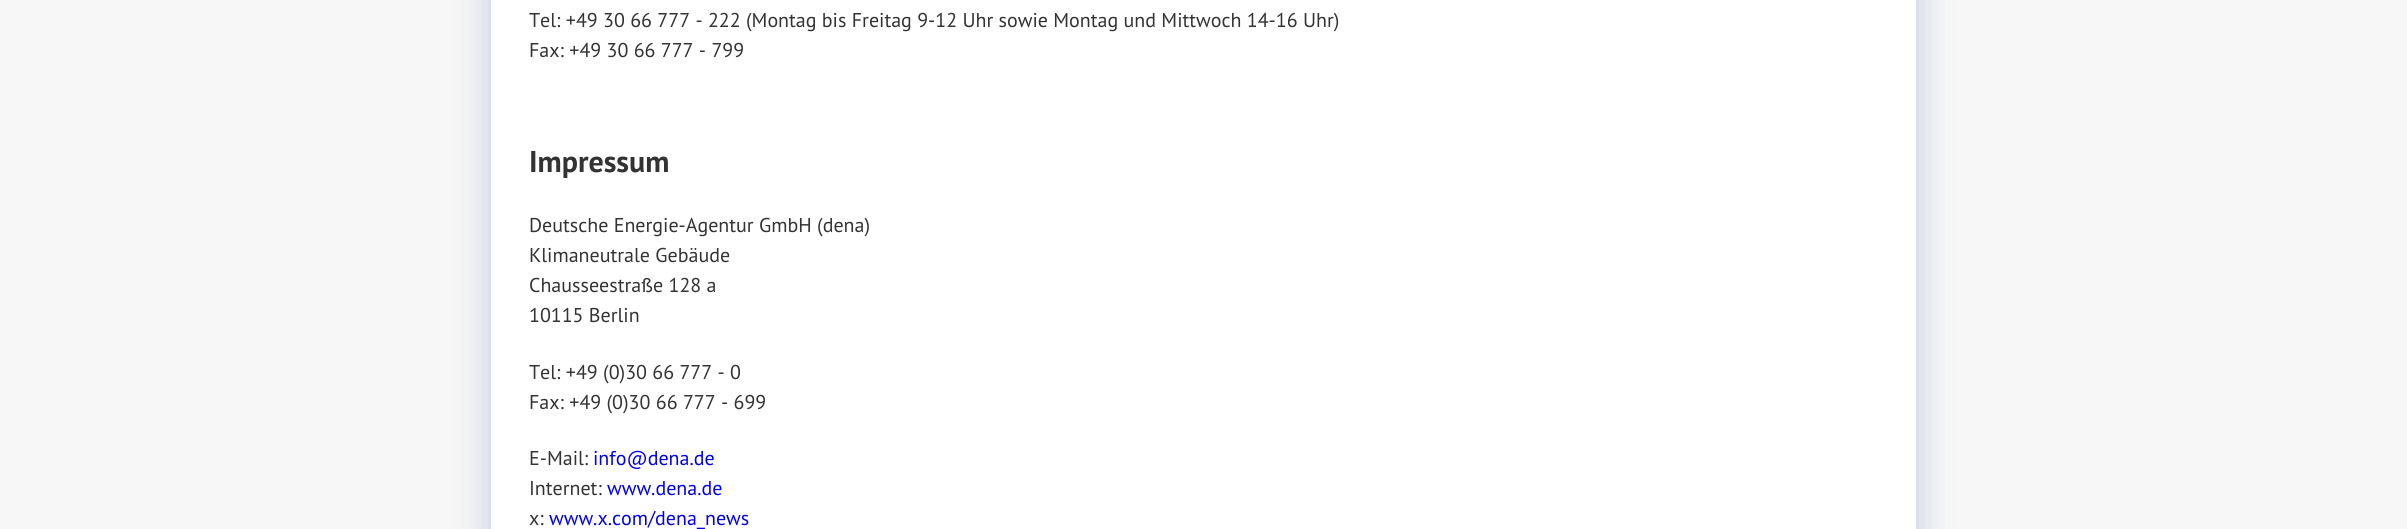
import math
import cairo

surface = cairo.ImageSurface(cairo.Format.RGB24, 2407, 529)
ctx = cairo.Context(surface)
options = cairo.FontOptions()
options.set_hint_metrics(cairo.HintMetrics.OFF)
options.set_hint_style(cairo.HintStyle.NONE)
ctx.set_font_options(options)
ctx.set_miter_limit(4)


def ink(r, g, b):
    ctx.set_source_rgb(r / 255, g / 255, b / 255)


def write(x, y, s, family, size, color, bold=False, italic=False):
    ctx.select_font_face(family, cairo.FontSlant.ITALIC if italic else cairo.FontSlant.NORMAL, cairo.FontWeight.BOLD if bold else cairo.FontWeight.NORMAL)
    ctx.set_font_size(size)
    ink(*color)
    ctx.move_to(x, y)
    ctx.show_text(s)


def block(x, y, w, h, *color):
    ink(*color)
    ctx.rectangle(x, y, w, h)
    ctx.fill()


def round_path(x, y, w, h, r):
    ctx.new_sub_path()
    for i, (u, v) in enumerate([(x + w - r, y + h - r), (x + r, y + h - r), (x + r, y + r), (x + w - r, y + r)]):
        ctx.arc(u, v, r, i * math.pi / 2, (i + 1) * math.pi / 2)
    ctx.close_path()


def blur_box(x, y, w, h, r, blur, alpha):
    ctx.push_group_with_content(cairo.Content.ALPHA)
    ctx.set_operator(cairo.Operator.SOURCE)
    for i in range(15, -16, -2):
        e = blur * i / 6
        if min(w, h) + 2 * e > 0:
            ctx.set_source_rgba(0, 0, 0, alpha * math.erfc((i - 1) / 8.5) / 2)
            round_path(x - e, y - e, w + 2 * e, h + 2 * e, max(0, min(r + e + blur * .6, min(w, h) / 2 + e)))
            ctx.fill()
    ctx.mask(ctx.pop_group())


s1 = dict(family="PT Sans", size=20, color=(51, 51, 51))
s2 = dict(family="PT Sans", size=30, color=(51, 51, 51), bold=True)
s3 = dict(family="PT Sans", size=20, color=(0, 0, 238))

ink(247, 247, 247)
ctx.paint()
ink(140, 153, 191)
blur_box(491, -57, 1425, 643, 0, 19, 0.5)
block(491, 0, 1425, 529, 255, 255, 255)
write(529, 27, "Tel: +49 30 66 777 - 222 (Montag bis Freitag 9-12 Uhr sowie Montag und Mittwoch 14-16 Uhr)", **s1)
write(529, 57, "Fax: +49 30 66 777 - 799", **s1)
write(529, 172, "Impressum", **s2)
write(529, 232, "Deutsche Energie-Agentur GmbH (dena)", **s1)
write(529, 262, "Klimaneutrale Gebäude", **s1)
write(529, 292, "Chausseestraße 128 a", **s1)
write(529, 322, "10115 Berlin", **s1)
write(529, 379, "Tel: +49 (0)30 66 777 - 0", **s1)
write(529, 409, "Fax: +49 (0)30 66 777 - 699", **s1)
write(529, 465, "E-Mail:", **s1)
write(593, 465, "info@dena.de", **s3)
write(529, 495, "Internet:", **s1)
write(607, 495, "www.dena.de", **s3)
write(529, 525, "x:", **s1)
write(549, 525, "www.x.com/dena_news", **s3)
surface.write_to_png("screenshot.png")
